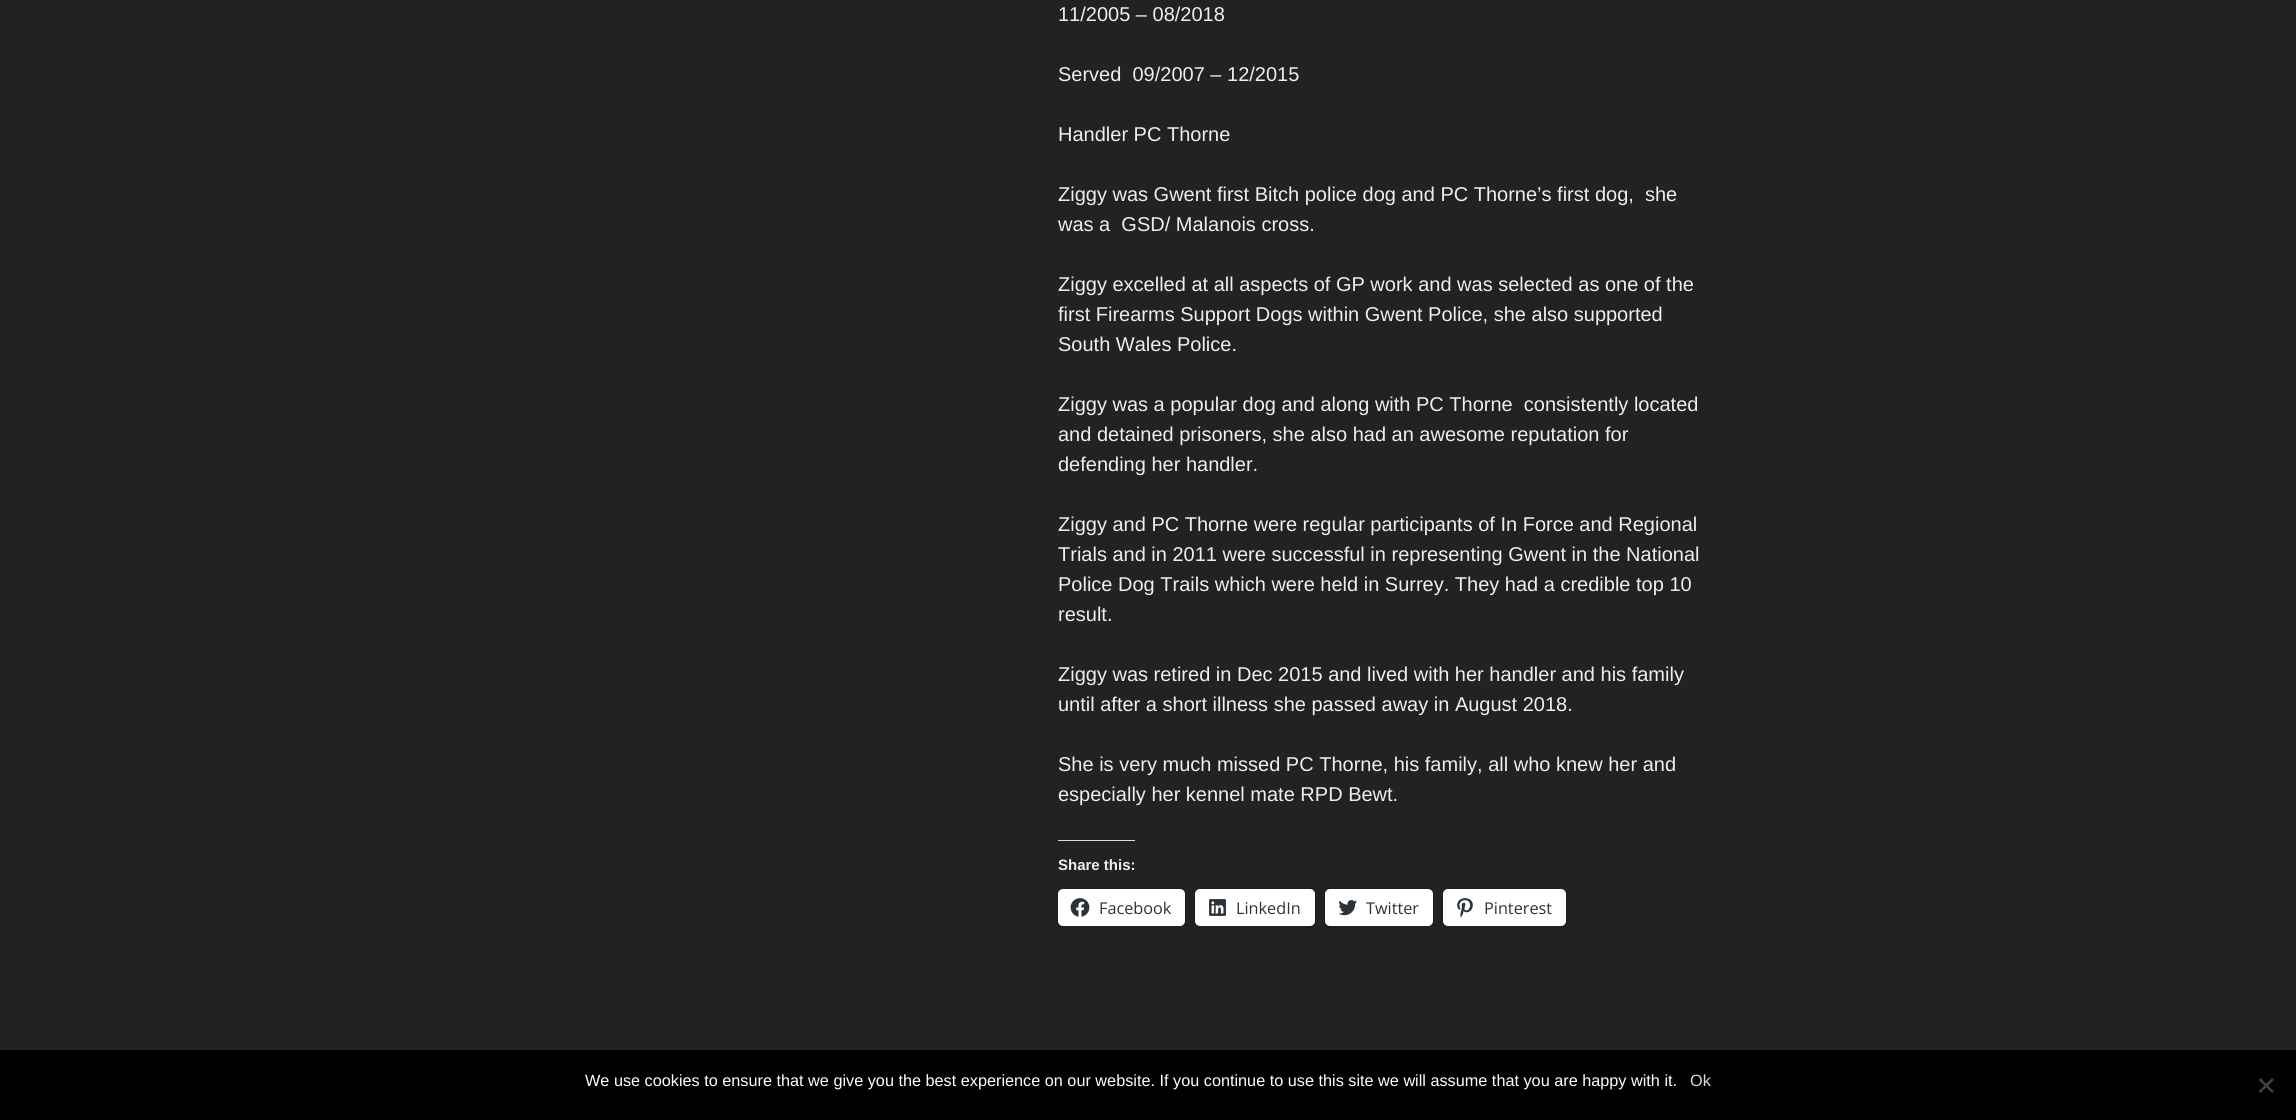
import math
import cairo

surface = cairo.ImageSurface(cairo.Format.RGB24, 2296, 1120)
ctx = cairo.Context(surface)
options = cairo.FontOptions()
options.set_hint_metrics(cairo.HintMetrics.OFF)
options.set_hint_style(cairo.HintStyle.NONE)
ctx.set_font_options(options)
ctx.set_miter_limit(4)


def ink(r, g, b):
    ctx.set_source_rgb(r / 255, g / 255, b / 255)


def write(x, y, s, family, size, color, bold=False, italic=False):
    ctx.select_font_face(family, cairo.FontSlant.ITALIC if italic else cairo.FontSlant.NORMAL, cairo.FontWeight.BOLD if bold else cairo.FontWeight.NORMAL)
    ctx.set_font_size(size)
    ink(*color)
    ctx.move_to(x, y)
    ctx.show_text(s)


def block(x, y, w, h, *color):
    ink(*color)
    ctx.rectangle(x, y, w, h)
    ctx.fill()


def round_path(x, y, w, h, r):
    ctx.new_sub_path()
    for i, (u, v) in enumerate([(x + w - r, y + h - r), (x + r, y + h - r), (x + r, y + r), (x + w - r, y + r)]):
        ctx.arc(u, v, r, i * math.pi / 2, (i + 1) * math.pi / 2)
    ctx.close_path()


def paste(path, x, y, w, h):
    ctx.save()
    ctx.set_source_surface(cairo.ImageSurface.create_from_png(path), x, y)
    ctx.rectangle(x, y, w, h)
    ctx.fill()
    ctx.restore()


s1 = dict(family="Liberation Sans", size=20, color=(238, 238, 238))
s2 = dict(family="Liberation Sans", size=15, color=(238, 238, 238), bold=True)
s3 = dict(family="Open Sans", size=16.25, color=(44, 51, 56))
s4 = dict(family="Liberation Sans", size=16.25, color=(255, 255, 255))
s5 = dict(family="Liberation Sans", size=16.25, color=(221, 221, 221))

ink(34, 34, 34)
ctx.paint()
write(1058, 21, "11/2005 – 08/2018", **s1)
write(1058, 81, "Served  09/2007 – 12/2015", **s1)
write(1058, 141, "Handler PC Thorne", **s1)
write(1058, 201, "Ziggy was Gwent first Bitch police dog and PC Thorne’s first dog,  she", **s1)
write(1058, 231, "was a  GSD/ Malanois cross.", **s1)
write(1058, 291, "Ziggy excelled at all aspects of GP work and was selected as one of the", **s1)
write(1058, 321, "first Firearms Support Dogs within Gwent Police, she also supported", **s1)
write(1058, 351, "South Wales Police.", **s1)
write(1058, 411, "Ziggy was a popular dog and along with PC Thorne  consistently located", **s1)
write(1058, 441, "and detained prisoners, she also had an awesome reputation for", **s1)
write(1058, 471, "defending her handler.", **s1)
write(1058, 531, "Ziggy and PC Thorne were regular participants of In Force and Regional", **s1)
write(1058, 561, "Trials and in 2011 were successful in representing Gwent in the National", **s1)
write(1058, 591, "Police Dog Trails which were held in Surrey. They had a credible top 10", **s1)
write(1058, 621, "result.", **s1)
write(1058, 681, "Ziggy was retired in Dec 2015 and lived with her handler and his family", **s1)
write(1058, 711, "until after a short illness she passed away in August 2018.", **s1)
write(1058, 771, "She is very much missed PC Thorne, his family, all who knew her and", **s1)
write(1058, 801, "especially her kennel mate RPD Bewt.", **s1)
block(1058, 840, 77, 1, 220, 220, 222)
write(1058, 870, "Share this:", **s2)
round_path(1056.5, 888.5, 129, 39, 5.5)
ink(30, 30, 30)
ctx.set_line_width(1)
ctx.stroke()
ink(255, 255, 255)
round_path(1058, 889, 127, 37, 5)
ctx.fill()
paste("pic1.png", 1070, 898, 20, 19)
write(1099, 914, "Facebook", **s3)
round_path(1194.5, 888.5, 121, 39, 5.5)
ink(30, 30, 30)
ctx.stroke()
ink(255, 255, 255)
round_path(1195, 889, 120, 37, 5)
ctx.fill()
paste("pic2.png", 1209, 899, 17, 17)
write(1236, 914, "LinkedIn", **s3)
round_path(1324.5, 888.5, 109, 39, 5.5)
ink(30, 30, 30)
ctx.stroke()
ink(255, 255, 255)
round_path(1325, 889, 108, 37, 5)
ctx.fill()
paste("pic3.png", 1338, 900, 19, 16)
write(1366, 914, "Twitter", **s3)
round_path(1441.5, 888.5, 126, 39, 5.5)
ink(30, 30, 30)
ctx.stroke()
ink(255, 255, 255)
round_path(1443, 889, 123, 37, 5)
ctx.fill()
paste("pic4.png", 1457, 898, 16, 20)
write(1484, 914, "Pinterest", **s3)
block(0, 1050, 2296, 70, 0, 0, 0)
write(585, 1086, "We use cookies to ensure that we give you the best experience on our website. If you continue to use this site we will assume that you are happy with it.", **s4)
write(1690, 1086, "Ok", **s5)
ink(64, 64, 64)
ctx.new_path()
ctx.move_to(2272, 1078)
ctx.line_to(2274, 1080)
ctx.line_to(2260.5, 1093)
ctx.line_to(2258.5, 1091.5)
ctx.close_path()
ctx.fill()
ctx.new_path()
ctx.move_to(2258.5, 1080)
ctx.line_to(2260.5, 1078)
ctx.line_to(2274, 1091.5)
ctx.line_to(2272, 1093)
ctx.close_path()
ctx.fill()
surface.write_to_png("screenshot.png")
